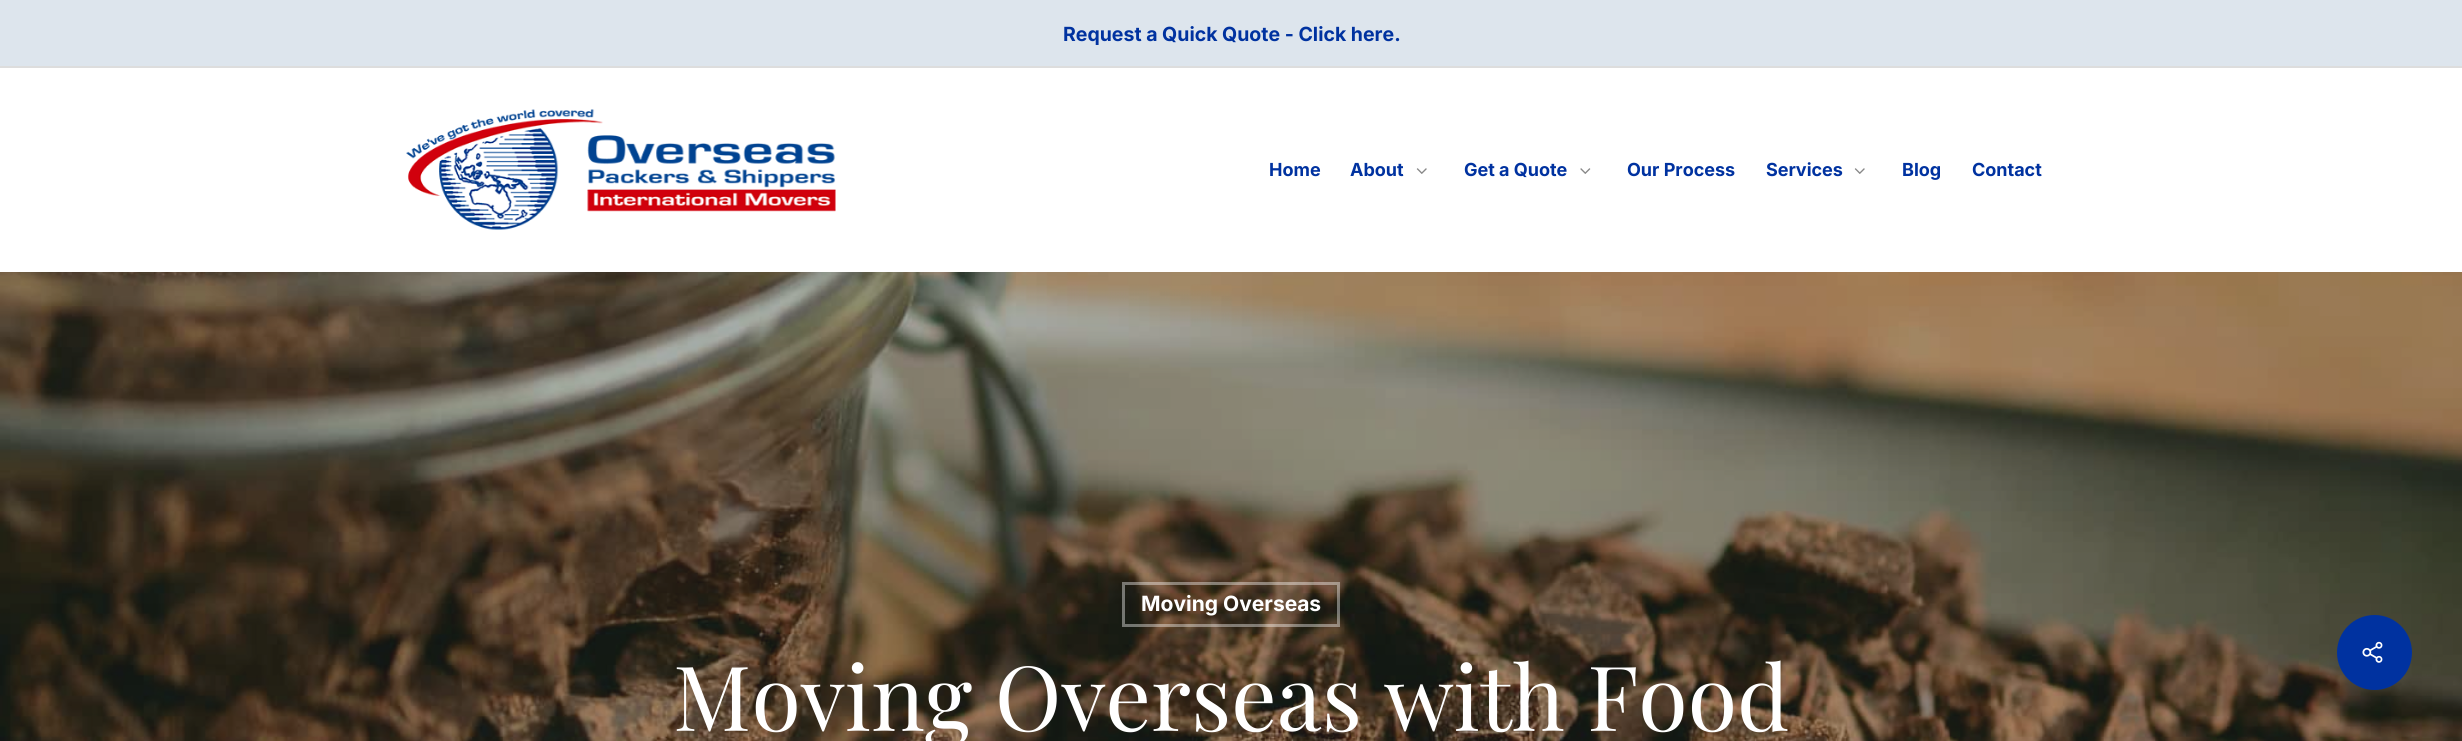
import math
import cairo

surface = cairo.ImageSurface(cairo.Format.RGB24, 2462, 741)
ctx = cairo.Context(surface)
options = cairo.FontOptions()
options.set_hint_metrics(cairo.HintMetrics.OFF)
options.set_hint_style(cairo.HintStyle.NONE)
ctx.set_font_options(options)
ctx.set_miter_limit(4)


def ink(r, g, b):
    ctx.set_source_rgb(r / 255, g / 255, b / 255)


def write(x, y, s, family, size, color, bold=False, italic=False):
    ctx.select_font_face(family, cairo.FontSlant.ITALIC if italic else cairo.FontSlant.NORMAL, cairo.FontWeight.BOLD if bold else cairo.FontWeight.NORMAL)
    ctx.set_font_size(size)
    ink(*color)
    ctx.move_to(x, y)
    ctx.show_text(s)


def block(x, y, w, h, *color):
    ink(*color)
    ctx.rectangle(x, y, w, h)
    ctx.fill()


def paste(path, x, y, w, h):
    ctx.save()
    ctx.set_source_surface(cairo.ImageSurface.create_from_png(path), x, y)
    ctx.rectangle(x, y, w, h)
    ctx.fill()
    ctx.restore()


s1 = dict(family="Inter", size=19.5, color=(0, 50, 160), bold=True)
s2 = dict(family="Inter", size=18, color=(0, 50, 160), bold=True)
s3 = dict(family="Inter", size=21, color=(255, 255, 255), bold=True)
s4 = dict(family="Playfair Display", size=90, color=(255, 255, 255))

ink(255, 255, 255)
ctx.paint()
block(0, 0, 2462, 66, 221, 229, 237)
block(0, 66, 2462, 2, 221, 221, 221)
write(1063, 41, "Request a Quick Quote - Click here.", **s1)
paste("pic1.png", 406, 109, 430, 121)
write(1269, 176, "Home", **s2)
write(1350, 176, "About", **s2)
paste("pic2.png", 1416, 168, 11, 6)
write(1464, 176, "Get a Quote", **s2)
paste("pic3.png", 1580, 168, 11, 6)
write(1627, 176, "Our Process", **s2)
write(1766, 176, "Services", **s2)
paste("pic2.png", 1854, 168, 11, 6)
write(1902, 176, "Blog", **s2)
write(1972, 176, "Contact", **s2)
paste("pic4.png", 0, 272, 2462, 469)
ctx.rectangle(1123.5, 583.5, 215, 42)
ctx.set_source_rgba(1, 1, 1, 0.4)
ctx.set_line_width(3)
ctx.stroke()
write(1141, 611, "Moving Overseas", **s3)
write(673, 731, "Moving Overseas with Food", **s4)
ink(0, 50, 160)
ctx.new_path()
ctx.arc(2374.5, 652.5, 37.5, 0, 2 * math.pi)
ctx.fill()
paste("pic5.png", 2362, 641, 21, 22)
surface.write_to_png("screenshot.png")
